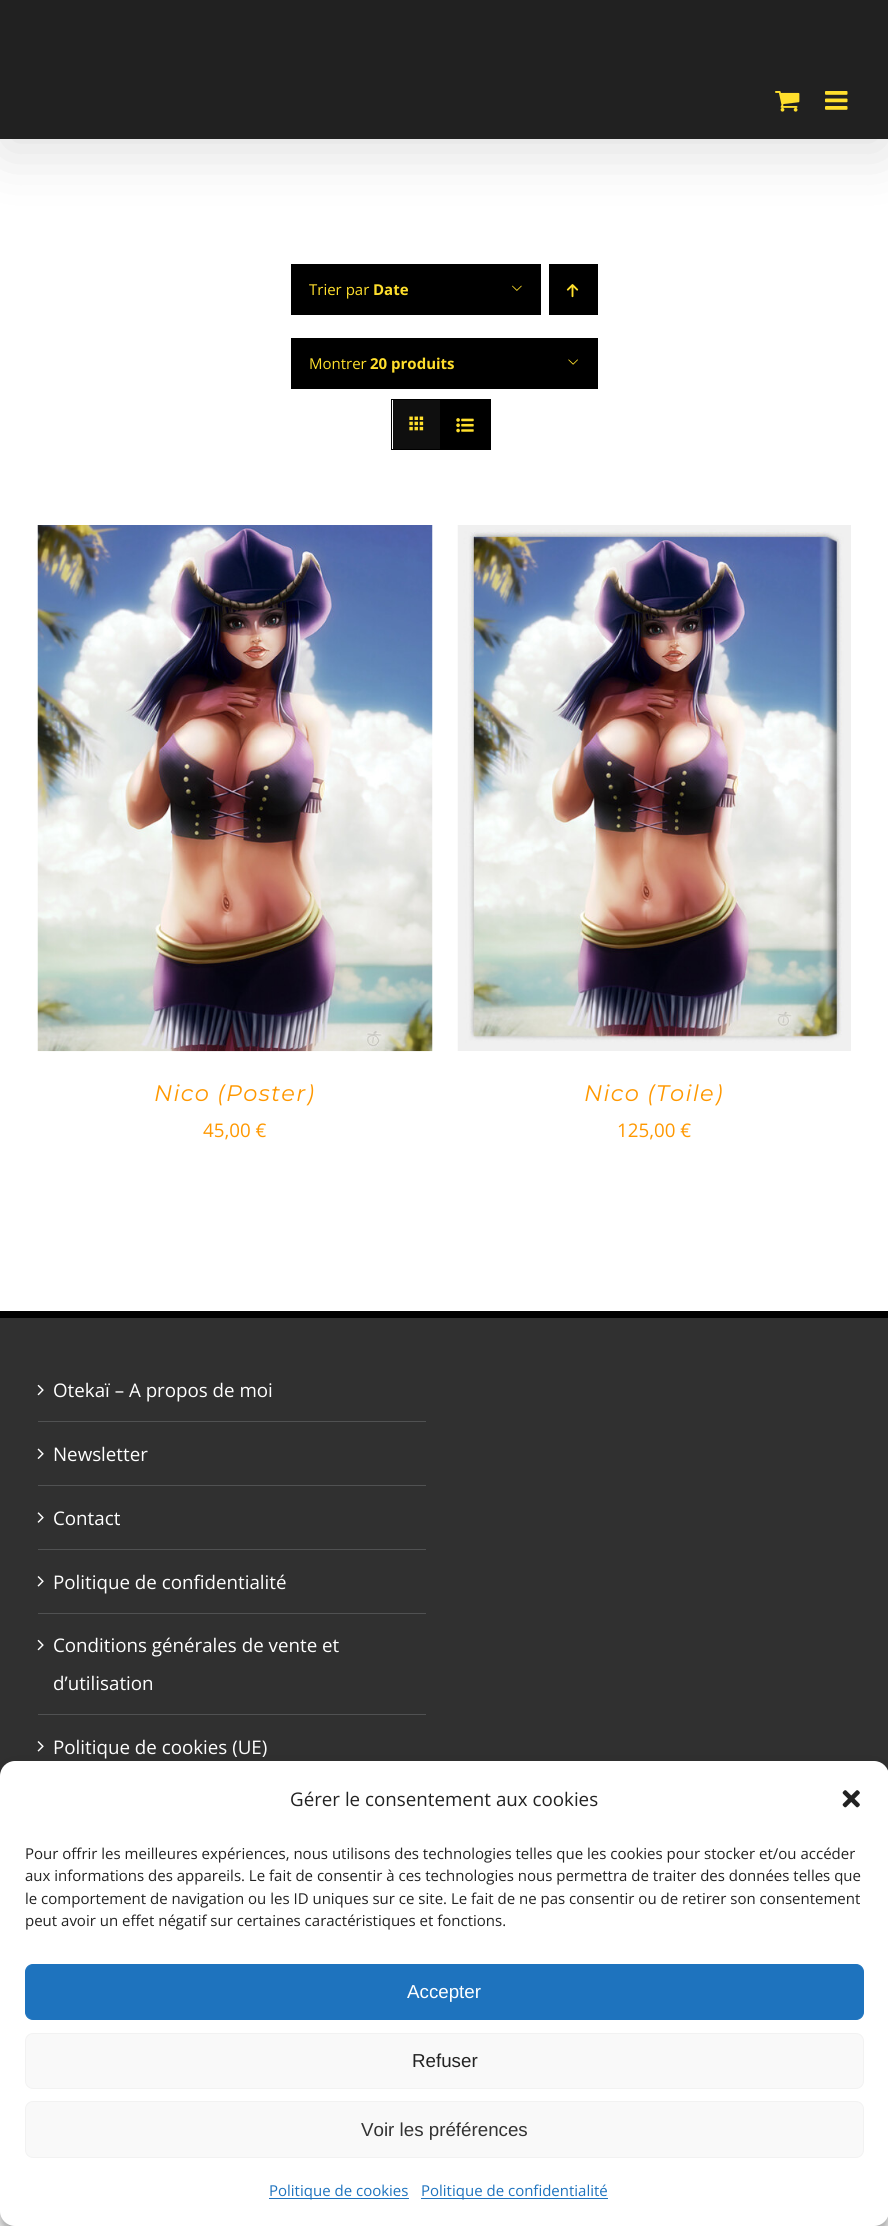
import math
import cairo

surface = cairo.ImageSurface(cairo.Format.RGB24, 888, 2226)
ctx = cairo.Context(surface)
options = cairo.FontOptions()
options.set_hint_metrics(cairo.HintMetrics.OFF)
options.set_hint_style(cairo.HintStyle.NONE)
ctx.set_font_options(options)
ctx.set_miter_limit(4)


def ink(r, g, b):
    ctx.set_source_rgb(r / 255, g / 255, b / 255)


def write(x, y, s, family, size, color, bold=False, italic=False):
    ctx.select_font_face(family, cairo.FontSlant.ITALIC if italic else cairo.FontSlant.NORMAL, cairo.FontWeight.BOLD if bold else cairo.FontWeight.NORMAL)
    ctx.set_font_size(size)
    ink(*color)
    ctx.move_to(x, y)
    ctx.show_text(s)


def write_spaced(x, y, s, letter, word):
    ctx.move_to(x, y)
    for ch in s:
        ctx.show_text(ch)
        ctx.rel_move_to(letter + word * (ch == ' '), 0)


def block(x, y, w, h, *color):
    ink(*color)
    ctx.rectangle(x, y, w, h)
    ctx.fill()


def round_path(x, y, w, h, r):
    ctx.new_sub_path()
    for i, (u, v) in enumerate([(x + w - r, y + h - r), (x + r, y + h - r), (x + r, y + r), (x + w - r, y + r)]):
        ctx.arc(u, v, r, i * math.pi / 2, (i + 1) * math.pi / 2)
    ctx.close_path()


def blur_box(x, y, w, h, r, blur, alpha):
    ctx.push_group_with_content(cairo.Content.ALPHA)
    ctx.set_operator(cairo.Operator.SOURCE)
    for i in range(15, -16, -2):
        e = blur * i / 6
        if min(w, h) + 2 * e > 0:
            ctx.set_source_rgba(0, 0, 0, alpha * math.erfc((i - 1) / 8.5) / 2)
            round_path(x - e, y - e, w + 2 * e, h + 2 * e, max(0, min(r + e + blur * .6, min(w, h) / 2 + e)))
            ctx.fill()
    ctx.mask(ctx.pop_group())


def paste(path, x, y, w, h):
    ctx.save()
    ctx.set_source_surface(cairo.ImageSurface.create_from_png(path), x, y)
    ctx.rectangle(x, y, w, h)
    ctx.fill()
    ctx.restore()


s1 = dict(family="Open Sans", size=15, color=(255, 223, 44))
s2 = dict(family="Open Sans", size=15, color=(255, 223, 44), bold=True)
s3 = dict(family="Open Sans", size=18.75, color=(255, 152, 0))
s4 = dict(family="Open Sans", size=18.75, color=(255, 255, 255))
s5 = dict(family="Open Sans", size=18.75, color=(34, 34, 34))
s6 = dict(family="Open Sans", size=15, color=(34, 34, 34))
s7 = dict(family="Liberation Sans", size=18.75, color=(255, 255, 255))
s8 = dict(family="Liberation Sans", size=18.75, color=(34, 34, 34))
s9 = dict(family="Liberation Sans", size=18.75, color=(51, 51, 51))
s10 = dict(family="Open Sans", size=15, color=(30, 115, 190))

ink(255, 255, 255)
ctx.paint()
ink(0, 0, 0)
blur_box(3, 15, 883, 134, 0, 31, 0.14)
block(0, 0, 888, 139, 33, 33, 33)
paste("pic1.png", 775, 91, 25, 21)
paste("pic2.png", 825, 91, 23, 19)
block(291, 264, 250, 51, 0, 0, 0)
write(309, 295, "Trier par", **s1)
write(373, 295, "Date", **s2)
paste("pic3.png", 512, 285, 10, 6)
block(549, 264, 49, 51, 0, 0, 0)
paste("pic4.png", 566, 284, 13, 14)
block(291, 338, 307, 51, 0, 0, 0)
write(309, 369, "Montrer", **s1)
write(370, 369, "20 produits", **s2)
paste("pic5.png", 568, 359, 10, 6)
ctx.rectangle(391.5, 399.5, 99, 50)
ink(0, 0, 0)
ctx.set_line_width(1)
ctx.stroke()
block(393, 400, 47, 49, 15, 15, 15)
block(440, 400, 50, 49, 0, 0, 0)
paste("pic6.png", 409, 416, 15, 15)
paste("pic7.png", 456, 418, 18, 15)
paste("pic8.png", 37, 525, 396, 527)
ctx.select_font_face("Montserrat Thin", cairo.FontSlant.ITALIC)
ctx.set_font_size(22.5)
ink(255, 152, 0)
write_spaced(154, 1101, "Nico (Poster)", 1.25, 0)
write(203, 1137, "45,00 €", **s3)
paste("pic9.png", 457, 525, 394, 526)
ctx.select_font_face("Montserrat Thin", cairo.FontSlant.ITALIC)
ctx.set_font_size(22.5)
write_spaced(584, 1101, "Nico (Toile)", 1.25, 0)
write(617, 1137, "125,00 €", **s3)
block(0, 1318, 888, 458, 48, 48, 48)
block(0, 1311, 888, 7, 0, 0, 0)
block(38, 1421, 388, 1, 80, 81, 82)
paste("pic10.png", 37, 1384, 7, 12)
write(53, 1397, "Otekaï – A propos de moi", **s4)
block(38, 1485, 388, 1, 80, 81, 82)
paste("pic11.png", 37, 1448, 7, 11)
write(53, 1461, "Newsletter", **s4)
block(38, 1549, 388, 1, 80, 81, 82)
paste("pic12.png", 37, 1512, 7, 11)
write(53, 1525, "Contact", **s4)
block(38, 1613, 388, 1, 80, 81, 82)
paste("pic13.png", 37, 1576, 7, 11)
write(53, 1589, "Politique de confidentialité", **s4)
block(38, 1714, 388, 1, 80, 81, 82)
paste("pic10.png", 37, 1639, 7, 12)
write(53, 1652, "Conditions générales de vente et", **s4)
write(53, 1690, "d’utilisation", **s4)
paste("pic13.png", 37, 1741, 7, 11)
write(53, 1754, "Politique de cookies (UE)", **s4)
ink(0, 0, 0)
blur_box(0, 1769, 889, 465, 15, 4, 0.23)
blur_box(0, 1774, 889, 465, 15, 12.5, 0.19)
ink(255, 255, 255)
round_path(0, 1761, 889, 465, 15)
ctx.fill()
write(290, 1806, "Gérer le consentement aux cookies", **s5)
paste("pic14.png", 842, 1790, 18, 18)
write(25, 1859, "Pour offrir les meilleures expériences, nous utilisons des technologies telles que les cookies pour stocker et/ou accéder", **s6)
write(25, 1881, "aux informations des appareils. Le fait de consentir à ces technologies nous permettra de traiter des données telles que", **s6)
write(25, 1904, "le comportement de navigation ou les ID uniques sur ce site. Le fait de ne pas consentir ou de retirer son consentement", **s6)
write(25, 1926, "peut avoir un effet négatif sur certaines caractéristiques et fonctions.", **s6)
ink(30, 115, 190)
round_path(25.5, 1964.5, 838, 55, 7.5)
ctx.fill_preserve()
ctx.stroke()
write(407, 1998, "Accepter", **s7)
ink(249, 249, 249)
round_path(25.5, 2033.5, 838, 55, 7.5)
ctx.fill_preserve()
ink(242, 242, 242)
ctx.stroke()
write(412, 2067, "Refuser", **s8)
ink(249, 249, 249)
round_path(25.5, 2101.5, 838, 56, 7.5)
ctx.fill_preserve()
ink(242, 242, 242)
ctx.stroke()
write(361, 2136, "Voir les préférences", **s9)
block(269, 2198, 140, 1, 30, 115, 190)
write(269, 2196, "Politique de cookies", **s10)
block(421, 2198, 187, 1, 30, 115, 190)
write(421, 2196, "Politique de confidentialité", **s10)
surface.write_to_png("screenshot.png")
